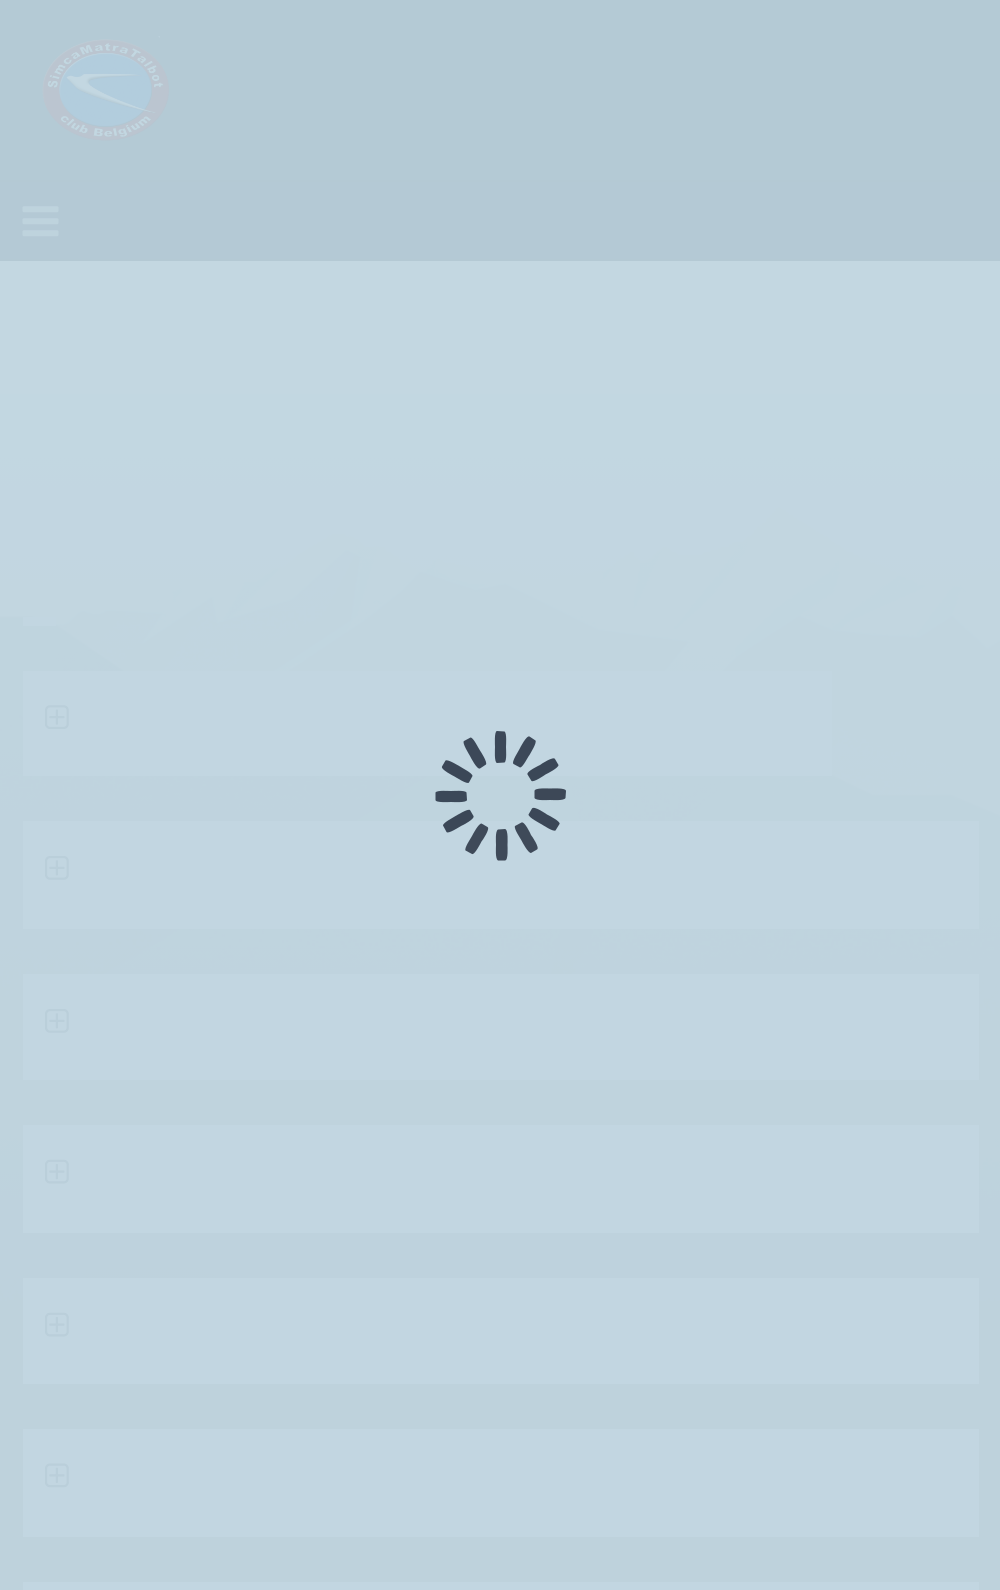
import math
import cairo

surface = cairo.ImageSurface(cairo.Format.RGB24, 1000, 1590)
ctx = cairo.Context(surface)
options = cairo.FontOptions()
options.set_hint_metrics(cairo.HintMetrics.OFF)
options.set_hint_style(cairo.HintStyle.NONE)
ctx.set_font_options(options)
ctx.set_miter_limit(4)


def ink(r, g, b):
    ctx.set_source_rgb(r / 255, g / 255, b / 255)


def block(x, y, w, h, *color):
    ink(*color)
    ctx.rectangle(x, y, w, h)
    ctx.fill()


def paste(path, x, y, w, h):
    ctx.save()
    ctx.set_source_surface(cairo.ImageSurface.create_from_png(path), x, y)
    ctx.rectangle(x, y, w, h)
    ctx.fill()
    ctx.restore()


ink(195, 215, 225)
ctx.paint()
paste("pic1.png", 0, 394, 1000, 1196)
block(0, 0, 1000, 180, 180, 202, 213)
paste("pic2.png", 42, 36, 128, 105)
block(0, 182, 1000, 77, 180, 201, 213)
block(0, 180, 1000, 2, 180, 201, 212)
block(0, 259, 1000, 2, 180, 201, 212)
paste("pic3.png", 22, 206, 37, 31)
block(23, 617, 33, 9, 194, 214, 225)
block(23, 671, 809, 105, 194, 214, 225)
paste("pic4.png", 45, 705, 24, 24)
block(23, 821, 956, 108, 194, 214, 225)
paste("pic5.png", 45, 856, 24, 24)
block(23, 974, 956, 106, 194, 214, 225)
paste("pic5.png", 45, 1009, 24, 24)
block(23, 1125, 956, 108, 194, 214, 225)
paste("pic6.png", 45, 1159, 24, 25)
block(23, 1278, 956, 106, 194, 214, 225)
paste("pic6.png", 45, 1312, 24, 25)
block(23, 1429, 956, 108, 194, 214, 225)
paste("pic7.png", 45, 1463, 24, 25)
block(23, 1582, 956, 8, 194, 214, 225)
ctx.set_source_rgba(0.196, 0.243, 0.306, 0.93)
ctx.new_path()
ctx.move_to(442, 766.5)
ctx.line_to(445.5, 760.5)
ctx.curve_to(448, 759, 458, 765.5, 460, 766.5)
ctx.curve_to(462, 768, 472.5, 773, 472.5, 776)
ctx.line_to(469, 782.5)
ctx.curve_to(467.5, 785, 455.5, 777, 454.5, 776.5)
ctx.curve_to(453.5, 776, 440.5, 769.5, 442, 766.5)
ctx.close_path()
ctx.fill()
ink(60, 72, 88)
ctx.new_path()
ctx.move_to(464, 741)
ctx.line_to(470.5, 737.5)
ctx.curve_to(473.5, 737.5, 478.5, 748.5, 480, 750.5)
ctx.curve_to(481, 752, 487.5, 762, 486, 764.5)
ctx.line_to(480, 768.5)
ctx.curve_to(477, 770, 470.5, 757, 470, 756)
ctx.curve_to(469.5, 755, 461.5, 742.5, 464, 741)
ctx.close_path()
ctx.fill()
ctx.new_path()
ctx.move_to(497, 731)
ctx.line_to(504.5, 731.5)
ctx.curve_to(507, 733, 506, 745, 506, 747)
ctx.curve_to(506, 749, 507, 761, 504.5, 762.5)
ctx.line_to(497, 763)
ctx.curve_to(494, 762.5, 495, 748.5, 495, 747)
ctx.curve_to(495, 746, 494, 731, 497, 731)
ctx.close_path()
ctx.move_to(529.5, 736.5)
ctx.line_to(535.5, 740.5)
ctx.curve_to(537, 743, 530.5, 753, 529.5, 755)
ctx.curve_to(528, 756.5, 523, 767.5, 520, 767.5)
ctx.line_to(513.5, 764)
ctx.curve_to(511, 762, 519, 750.5, 519.5, 749)
ctx.curve_to(520, 748, 526.5, 735, 529.5, 736.5)
ctx.close_path()
ctx.fill()
ctx.set_source_rgba(0.196, 0.243, 0.306, 0.93)
ctx.new_path()
ctx.move_to(555, 759)
ctx.line_to(558.5, 765)
ctx.curve_to(558.5, 768, 547.5, 773.5, 545.5, 774.5)
ctx.curve_to(544, 775.5, 534, 782.5, 531.5, 781)
ctx.line_to(527.5, 774.5)
ctx.curve_to(526, 771.5, 539, 765.5, 540, 765)
ctx.curve_to(541, 764, 553.5, 756, 555, 759)
ctx.close_path()
ctx.fill()
ink(59, 72, 88)
ctx.new_path()
ctx.move_to(435.5, 800)
ctx.line_to(435.5, 792.5)
ctx.curve_to(437, 790, 449, 791, 451, 791)
ctx.curve_to(453.5, 791, 465, 790, 466.5, 792.5)
ctx.line_to(467, 800)
ctx.curve_to(466.5, 803, 452.5, 802, 451, 802)
ctx.curve_to(450, 802, 435.5, 803, 435.5, 800)
ctx.close_path()
ctx.fill()
ink(61, 72, 87)
ctx.new_path()
ctx.move_to(566, 791)
ctx.line_to(565.5, 798)
ctx.curve_to(564, 801, 552.5, 800, 550, 800)
ctx.curve_to(548, 800, 536, 801, 534.5, 798)
ctx.line_to(534.5, 791)
ctx.curve_to(534.5, 787.5, 548.5, 788.5, 550, 788.5)
ctx.curve_to(551.5, 788.5, 566, 787.5, 566, 791)
ctx.close_path()
ctx.fill()
ink(63, 74, 89)
ctx.new_path()
ctx.move_to(472, 854)
ctx.line_to(465.5, 850.5)
ctx.curve_to(464, 848, 471, 838, 472, 836)
ctx.curve_to(473, 834, 478.5, 823.5, 481.5, 823.5)
ctx.line_to(487.5, 827)
ctx.curve_to(490.5, 828.5, 482.5, 840.5, 481.5, 841.5)
ctx.curve_to(481, 842.5, 474.5, 855.5, 472, 854)
ctx.close_path()
ctx.fill()
ctx.set_source_rgba(0.196, 0.243, 0.306, 0.93)
ctx.new_path()
ctx.move_to(446.5, 832)
ctx.line_to(443, 825.5)
ctx.curve_to(443, 822.5, 453.5, 817.5, 455.5, 816)
ctx.curve_to(457.5, 815, 467.5, 808.5, 470, 810)
ctx.line_to(473.5, 816)
ctx.curve_to(475, 819, 462.5, 825.5, 461, 826)
ctx.curve_to(460, 826.5, 448, 834.5, 446.5, 832)
ctx.close_path()
ctx.fill()
ctx.new_path()
ctx.move_to(559.5, 824)
ctx.line_to(555.5, 830.5)
ctx.curve_to(553, 832, 543, 825, 541, 824)
ctx.curve_to(539.5, 823, 528.5, 817.5, 528.5, 814.5)
ctx.line_to(532, 808.5)
ctx.curve_to(534, 805.5, 545.5, 813.5, 547, 814.5)
ctx.curve_to(548, 815, 561, 821.5, 559.5, 824)
ctx.close_path()
ctx.fill()
ink(63, 74, 89)
ctx.new_path()
ctx.move_to(537, 849.5)
ctx.line_to(531, 853)
ctx.curve_to(528, 853, 522.5, 842.5, 521.5, 840.5)
ctx.curve_to(520.5, 838.5, 513.5, 828.5, 515, 826)
ctx.line_to(521.5, 822.5)
ctx.curve_to(524.5, 821, 530.5, 833.5, 531, 835)
ctx.curve_to(532, 836, 540, 848, 537, 849.5)
ctx.close_path()
ctx.move_to(505, 860.5)
ctx.line_to(498, 860.5)
ctx.curve_to(495, 859, 496, 847, 496, 845)
ctx.curve_to(496, 842.5, 495, 831, 498, 829.5)
ctx.line_to(505, 829)
ctx.curve_to(508.5, 829.5, 507.5, 843.5, 507.5, 845)
ctx.curve_to(507.5, 846, 508.5, 860.5, 505, 860.5)
ctx.close_path()
ctx.fill()
surface.write_to_png("screenshot.png")
